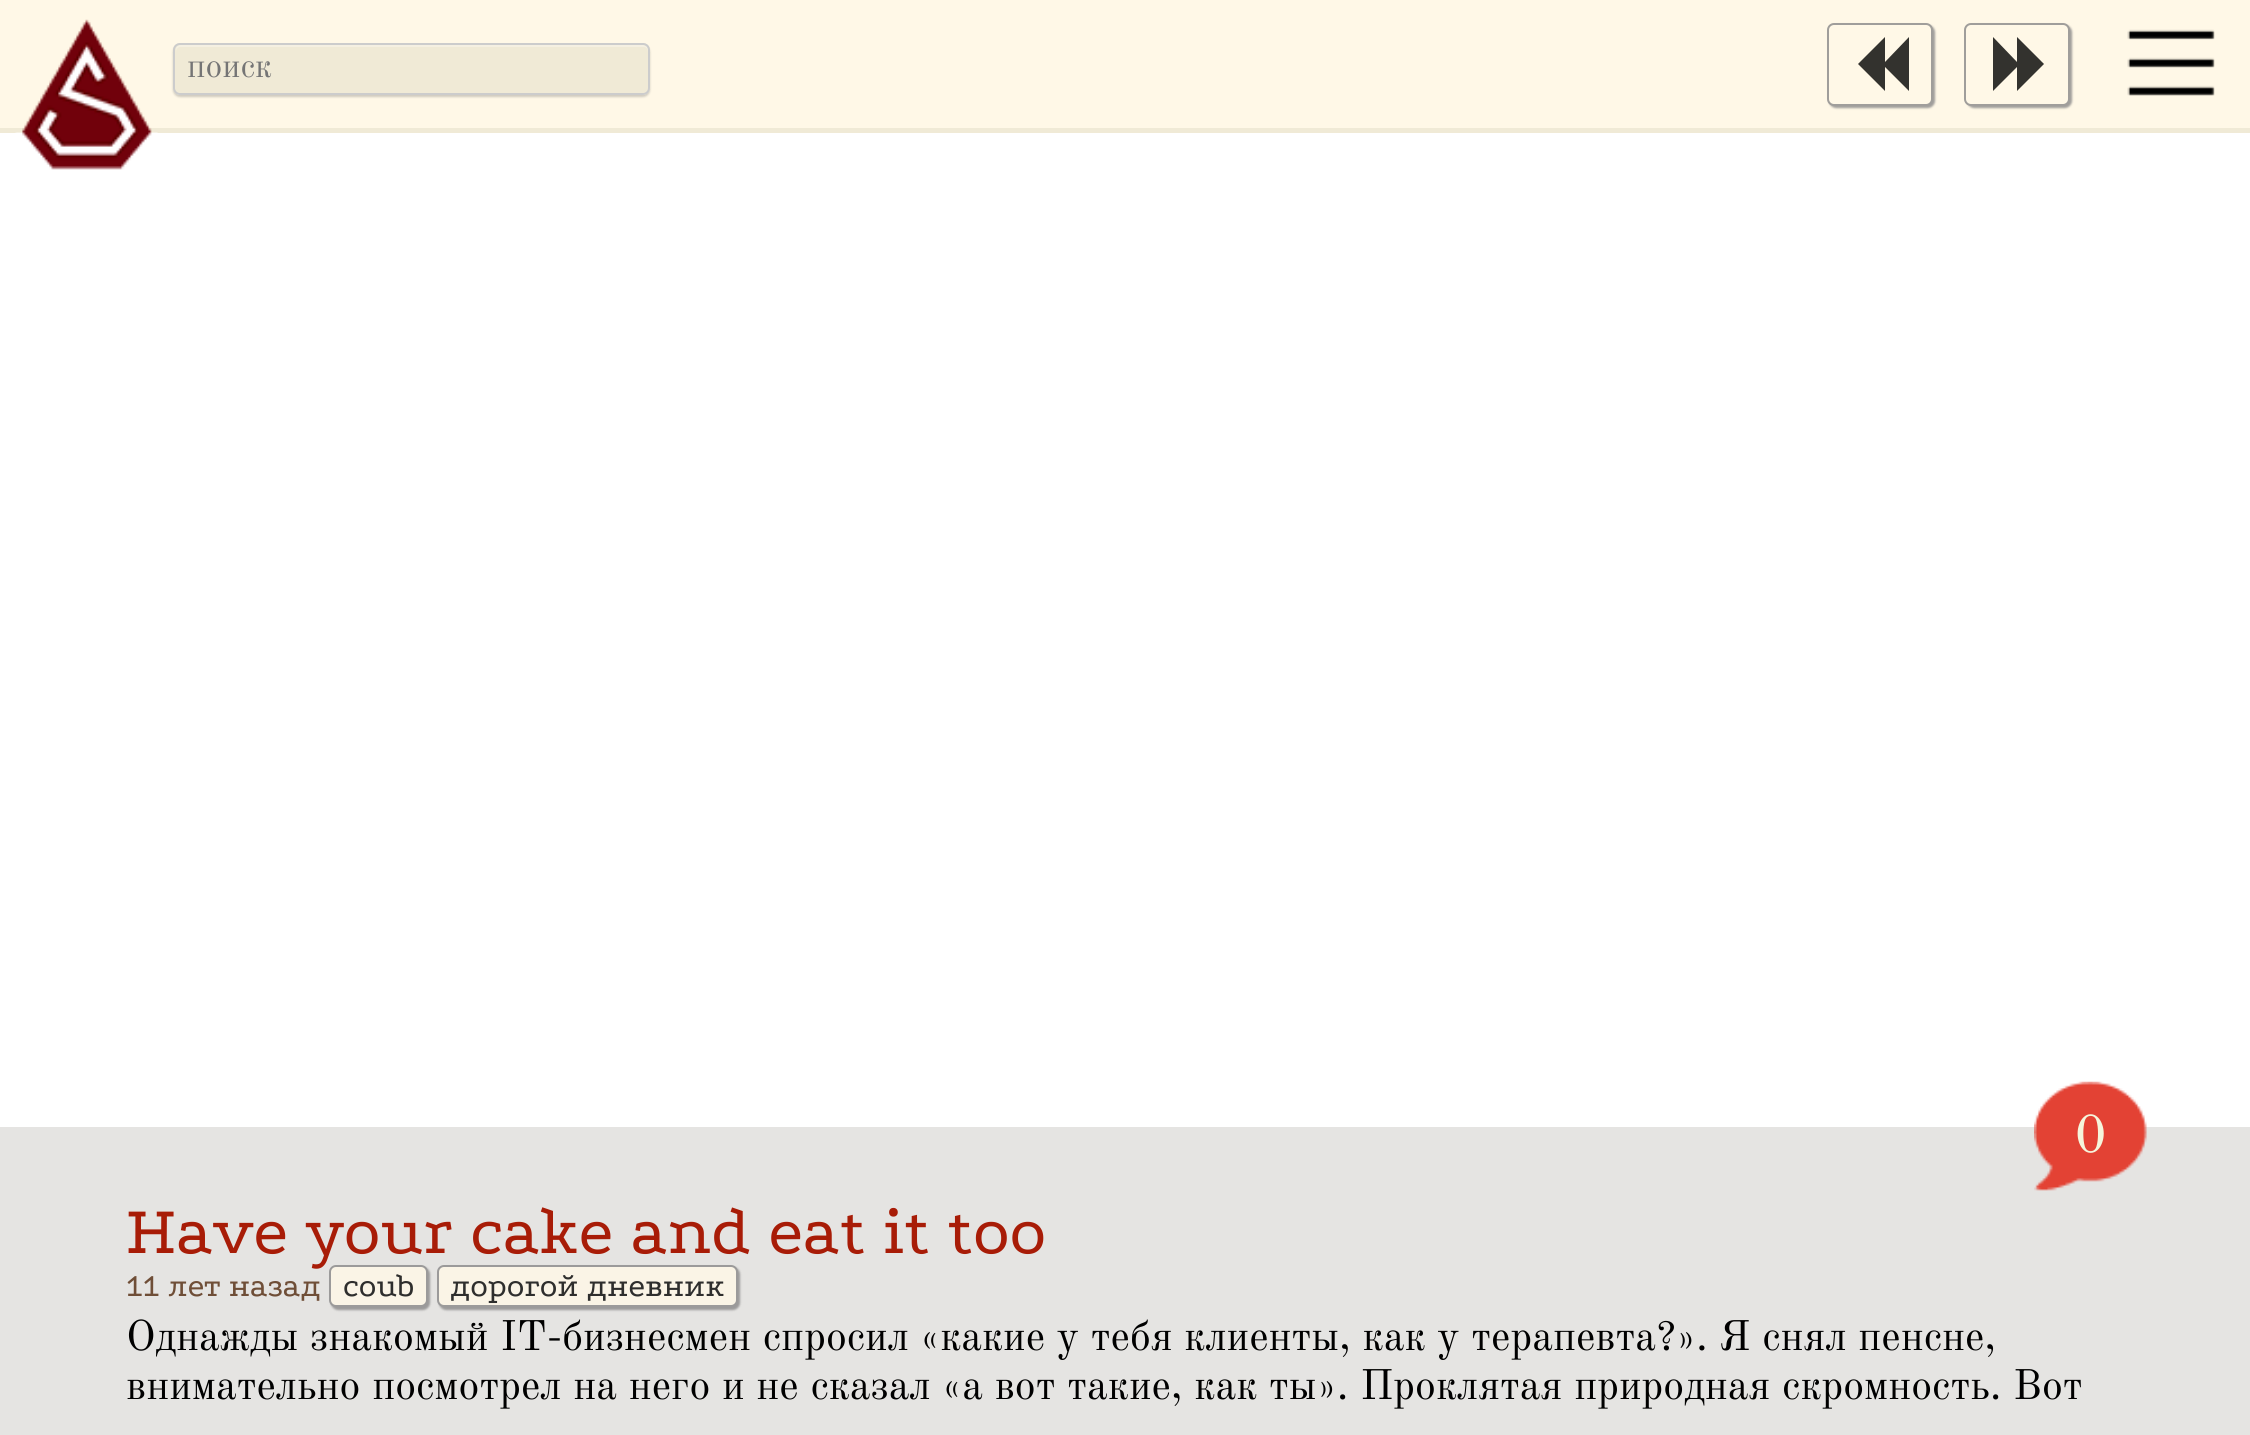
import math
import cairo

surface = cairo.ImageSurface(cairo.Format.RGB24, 2250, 1435)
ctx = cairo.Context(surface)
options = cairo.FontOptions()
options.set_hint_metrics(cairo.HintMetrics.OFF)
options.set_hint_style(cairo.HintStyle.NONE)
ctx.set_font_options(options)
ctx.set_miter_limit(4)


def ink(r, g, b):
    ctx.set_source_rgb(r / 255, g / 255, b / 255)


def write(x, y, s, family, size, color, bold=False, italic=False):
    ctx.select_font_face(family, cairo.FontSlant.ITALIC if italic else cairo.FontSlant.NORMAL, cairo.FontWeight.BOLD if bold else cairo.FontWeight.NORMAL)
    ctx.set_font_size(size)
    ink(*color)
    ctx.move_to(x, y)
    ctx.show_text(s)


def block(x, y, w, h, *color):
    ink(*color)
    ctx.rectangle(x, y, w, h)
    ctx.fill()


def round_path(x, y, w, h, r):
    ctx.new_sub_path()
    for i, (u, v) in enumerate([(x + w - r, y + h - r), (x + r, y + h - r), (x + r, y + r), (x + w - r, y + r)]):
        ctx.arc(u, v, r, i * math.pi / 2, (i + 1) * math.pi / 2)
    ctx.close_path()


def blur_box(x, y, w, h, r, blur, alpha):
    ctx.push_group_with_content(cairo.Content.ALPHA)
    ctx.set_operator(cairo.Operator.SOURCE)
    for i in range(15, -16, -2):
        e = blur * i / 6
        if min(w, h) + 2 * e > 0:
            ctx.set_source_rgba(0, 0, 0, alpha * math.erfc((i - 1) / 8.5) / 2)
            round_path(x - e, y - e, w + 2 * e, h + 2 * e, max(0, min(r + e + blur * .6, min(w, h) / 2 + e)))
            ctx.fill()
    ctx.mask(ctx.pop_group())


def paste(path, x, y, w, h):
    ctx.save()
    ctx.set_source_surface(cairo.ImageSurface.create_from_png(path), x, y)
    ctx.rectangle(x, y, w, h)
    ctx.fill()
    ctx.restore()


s1 = dict(family="Old Standard TT", size=33.75, color=(117, 117, 117))
s2 = dict(family="Old Standard TT", size=54, color=(245, 245, 220))
s3 = dict(family="Podkova", size=70.25, color=(168, 28, 7))
s4 = dict(family="Podkova", size=33.75, color=(111, 78, 55))
s5 = dict(family="Podkova", size=33.75, color=(46, 46, 45))
s6 = dict(family="Old Standard TT", size=42, color=(0, 0, 0))

ink(255, 255, 255)
ctx.paint()
block(0, 0, 2250, 128, 255, 248, 231)
block(0, 128, 2250, 5, 240, 234, 214)
paste("pic1.png", 15, 19, 143, 151)
ink(100, 100, 100)
blur_box(173, 45, 477, 52, 7, 1, 0.3)
ink(240, 234, 214)
round_path(173, 43, 477, 52, 7)
ctx.fill()
ink(245, 240, 226)
ctx.new_path()
ctx.move_to(180, 47)
ctx.line_to(644, 47)
ctx.curve_to(646, 47, 648, 49, 648, 52)
ctx.line_to(648, 50)
ctx.curve_to(648, 47, 646, 45, 643, 45)
ctx.line_to(181, 45)
ctx.curve_to(178, 45, 176, 47, 176, 50)
ctx.line_to(176, 52)
ctx.curve_to(176, 49, 178, 47, 180, 47)
ctx.close_path()
ctx.fill()
round_path(174, 44, 475, 50, 6)
ink(204, 204, 204)
ctx.stroke()
write(187, 77, "поиск", **s1)
ink(160, 158, 155)
blur_box(1829, 25, 106, 83, 7, 1, 1)
ink(255, 248, 231)
round_path(1828, 24, 104, 81, 6)
ctx.fill_preserve()
ink(160, 158, 155)
ctx.stroke()
ink(51, 50, 46)
ctx.new_path()
ctx.move_to(1885, 37)
ctx.line_to(1885, 62)
ctx.line_to(1909, 37)
ctx.line_to(1909, 91)
ctx.line_to(1885, 67)
ctx.line_to(1885, 91)
ctx.line_to(1858, 64)
ctx.close_path()
ctx.fill()
ink(160, 158, 155)
blur_box(1967, 25, 105, 83, 7, 1, 1)
ink(255, 248, 231)
round_path(1965, 24, 104, 81, 6)
ctx.fill_preserve()
ink(160, 158, 155)
ctx.stroke()
ink(51, 50, 46)
ctx.new_path()
ctx.move_to(2017, 91)
ctx.line_to(2017, 67)
ctx.line_to(1993, 91)
ctx.line_to(1993, 37)
ctx.line_to(2017, 62)
ctx.line_to(2017, 37)
ctx.line_to(2044, 64)
ctx.close_path()
ctx.fill()
paste("pic2.png", 2127, 29, 88, 67)
block(0, 1127, 2250, 308, 229, 228, 226)
paste("pic3.png", 2034, 1081, 113, 110)
write(2075, 1152, "0", **s2)
write(126, 1253, "Have your cake and eat it too", **s3)
write(126, 1296, "11 лет назад", **s4)
ink(155, 154, 154)
blur_box(331, 1267, 99, 43, 7, 1, 1)
ink(250, 244, 230)
round_path(330, 1266, 97, 40, 6)
ctx.fill_preserve()
ink(155, 154, 154)
ctx.stroke()
write(343, 1296, "coub", **s5)
ink(155, 154, 154)
blur_box(439, 1267, 301, 43, 7, 1, 1)
ink(250, 244, 230)
round_path(438, 1266, 299, 40, 6)
ctx.fill_preserve()
ink(155, 154, 154)
ctx.stroke()
write(450, 1296, "дорогой дневник", **s5)
write(126, 1350, "Однажды знакомый IT-бизнесмен спросил", **s6)
write(920, 1350, "«какие у тебя клиенты, как у терапевта?».", **s6)
write(1719, 1350, "Я снял пенсне,", **s6)
write(126, 1399, "внимательно посмотрел на него и не сказал", **s6)
write(942, 1399, "«а вот такие, как ты». Проклятая природная скромность.", **s6)
write(2013, 1399, "Вот", **s6)
surface.write_to_png("screenshot.png")
